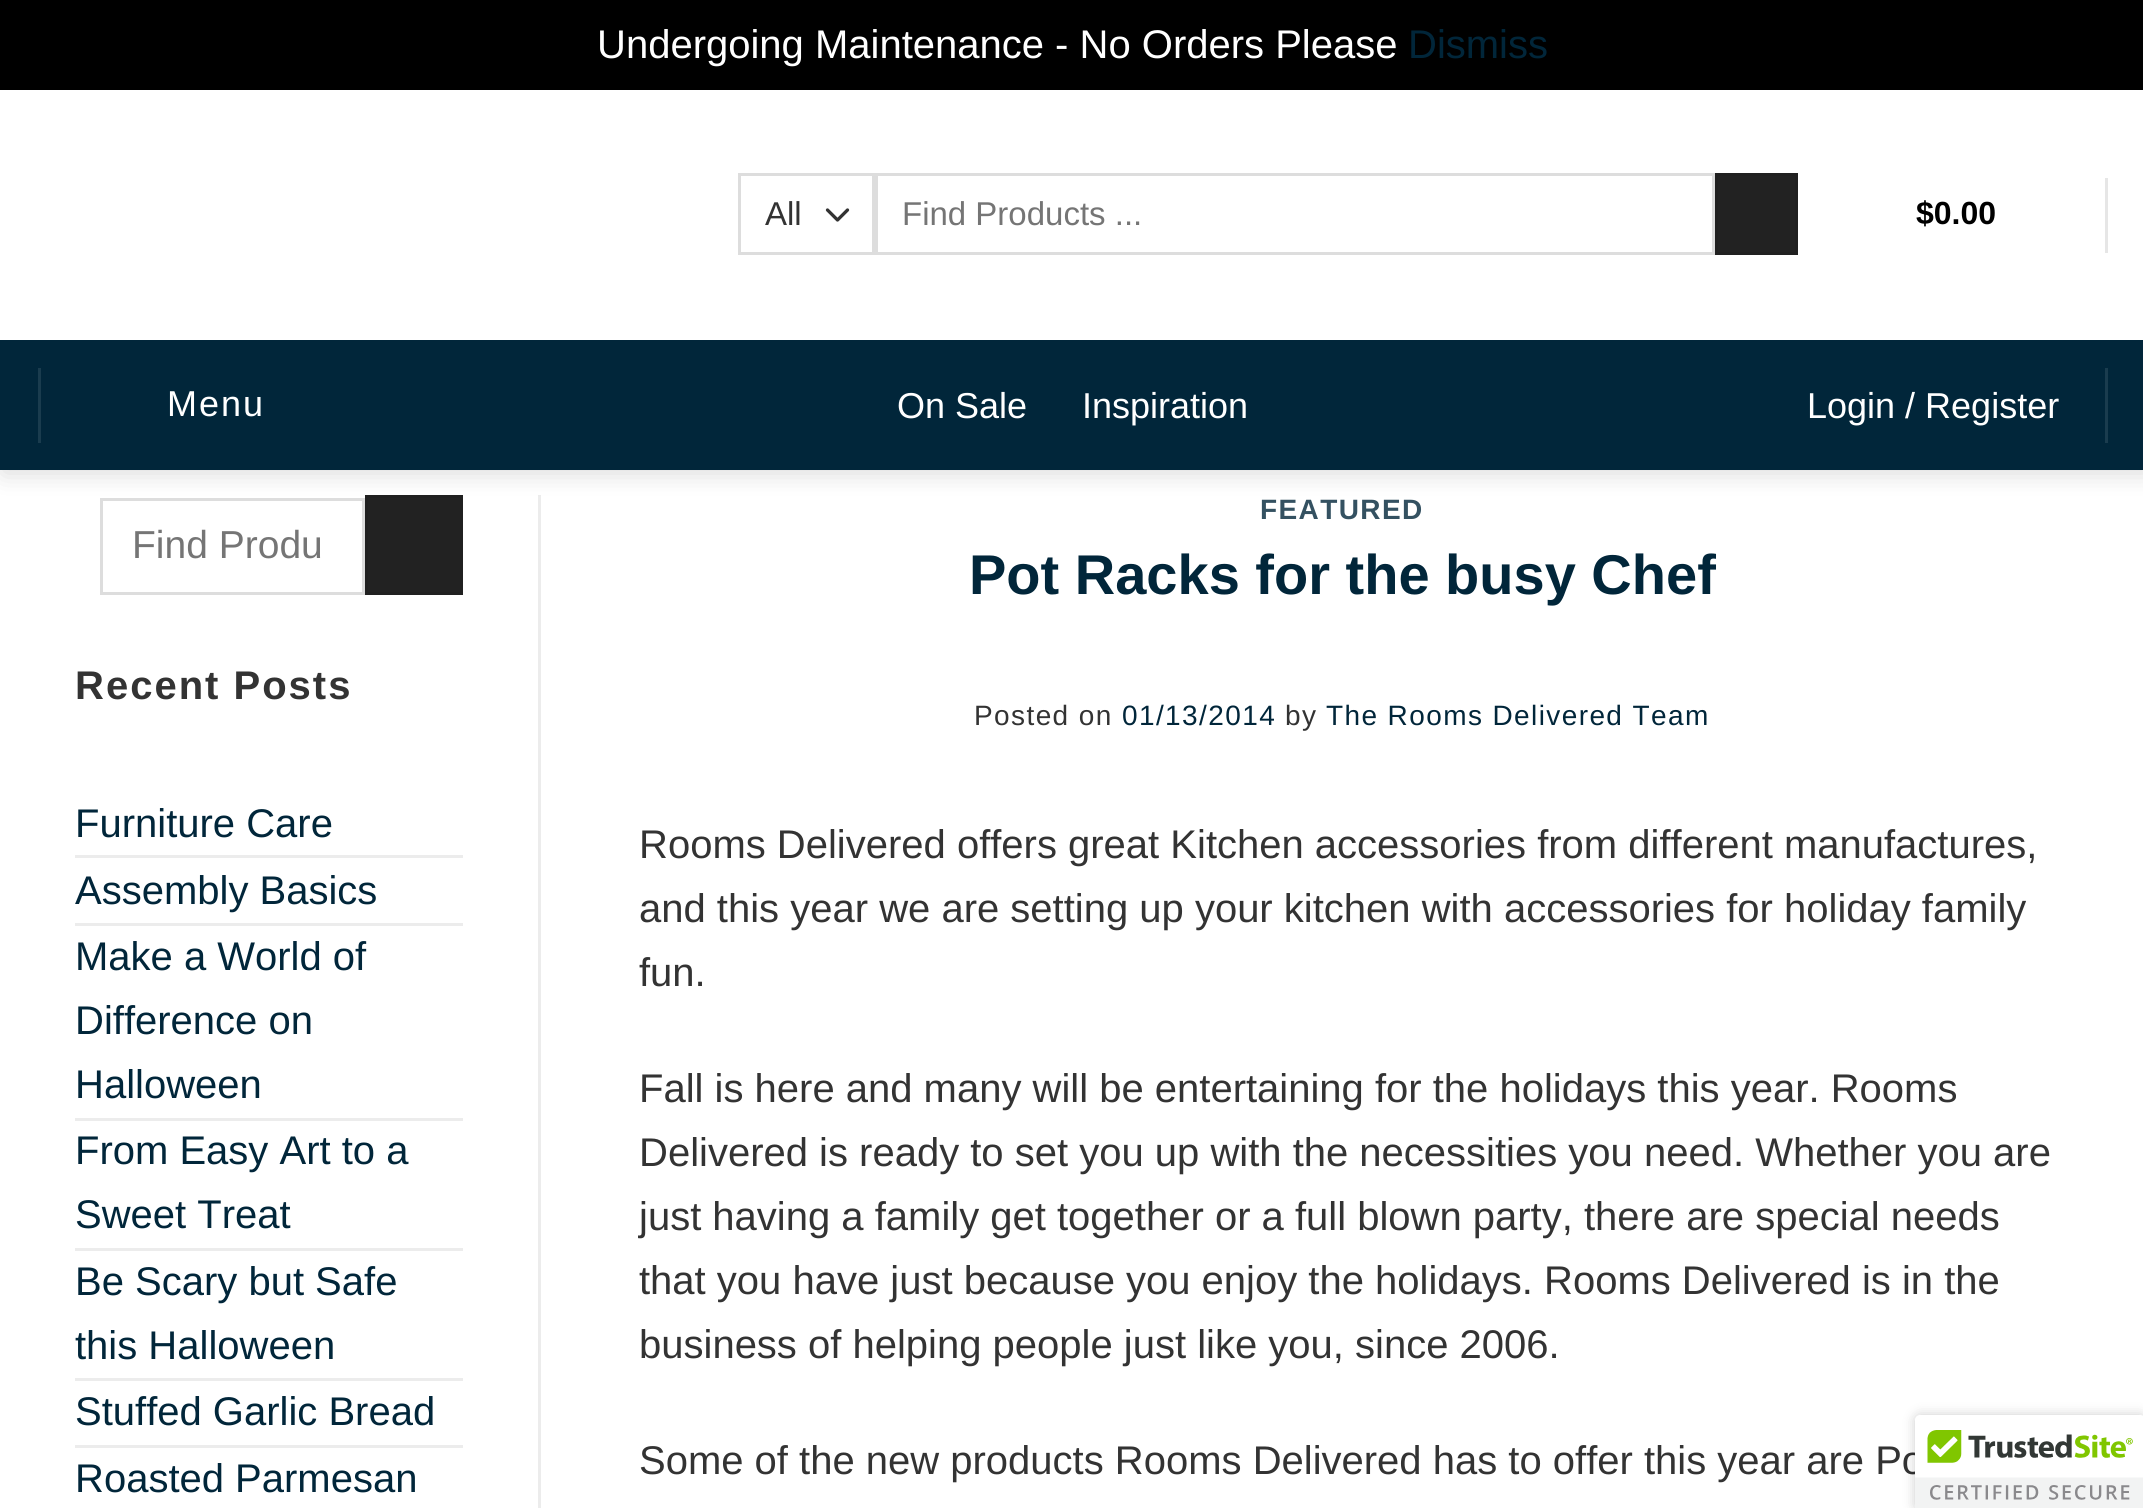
import math
import cairo

surface = cairo.ImageSurface(cairo.Format.RGB24, 2143, 1508)
ctx = cairo.Context(surface)
options = cairo.FontOptions()
options.set_hint_metrics(cairo.HintMetrics.OFF)
options.set_hint_style(cairo.HintStyle.NONE)
ctx.set_font_options(options)
ctx.set_miter_limit(4)


def ink(r, g, b):
    ctx.set_source_rgb(r / 255, g / 255, b / 255)


def write(x, y, s, family, size, color, bold=False, italic=False):
    ctx.select_font_face(family, cairo.FontSlant.ITALIC if italic else cairo.FontSlant.NORMAL, cairo.FontWeight.BOLD if bold else cairo.FontWeight.NORMAL)
    ctx.set_font_size(size)
    ink(*color)
    ctx.move_to(x, y)
    ctx.show_text(s)


def write_spaced(x, y, s, letter, word):
    ctx.move_to(x, y)
    for ch in s:
        ctx.show_text(ch)
        ctx.rel_move_to(letter + word * (ch == ' '), 0)


def block(x, y, w, h, *color):
    ink(*color)
    ctx.rectangle(x, y, w, h)
    ctx.fill()


def round_path(x, y, w, h, r):
    ctx.new_sub_path()
    for i, (u, v) in enumerate([(x + w - r, y + h - r), (x + r, y + h - r), (x + r, y + r), (x + w - r, y + r)]):
        ctx.arc(u, v, r, i * math.pi / 2, (i + 1) * math.pi / 2)
    ctx.close_path()


def blur_box(x, y, w, h, r, blur, alpha):
    ctx.push_group_with_content(cairo.Content.ALPHA)
    ctx.set_operator(cairo.Operator.SOURCE)
    for i in range(15, -16, -2):
        e = blur * i / 6
        if min(w, h) + 2 * e > 0:
            ctx.set_source_rgba(0, 0, 0, alpha * math.erfc((i - 1) / 8.5) / 2)
            round_path(x - e, y - e, w + 2 * e, h + 2 * e, max(0, min(r + e + blur * .6, min(w, h) / 2 + e)))
            ctx.fill()
    ctx.mask(ctx.pop_group())


def paste(path, x, y, w, h):
    ctx.save()
    ctx.set_source_surface(cairo.ImageSurface.create_from_png(path), x, y)
    ctx.rectangle(x, y, w, h)
    ctx.fill()
    ctx.restore()


s1 = dict(family="Liberation Sans", size=40, color=(255, 255, 255))
s2 = dict(family="Liberation Sans", size=40, color=(1, 38, 58))
s3 = dict(family="Liberation Sans", size=33, color=(51, 51, 51))
s4 = dict(family="Liberation Sans", size=33, color=(117, 117, 117))
s5 = dict(family="Liberation Sans", size=32, color=(0, 0, 0), bold=True)
s6 = dict(family="Liberation Sans", size=36, color=(255, 255, 255))
s7 = dict(family="Liberation Sans", size=39, color=(117, 117, 117))
s8 = dict(family="Liberation Sans", size=56, color=(1, 38, 58), bold=True)
s9 = dict(family="Liberation Sans", size=40, color=(51, 51, 51))

ink(255, 255, 255)
ctx.paint()
block(0, 0, 2143, 90, 0, 0, 0)
write(597, 58, "Undergoing Maintenance - No Orders Please", **s1)
write(1408, 58, "Dismiss", **s2)
ctx.rectangle(101.5, 499.5, 262, 94)
ink(221, 221, 221)
ctx.set_line_width(3)
ctx.stroke()
ink(34, 34, 34)
ctx.rectangle(366.5, 496.5, 95, 97)
ctx.fill_preserve()
ink(32, 32, 32)
ctx.stroke()
block(538, 495, 3, 1013, 236, 236, 236)
ctx.save()
ctx.set_fill_rule(cairo.FillRule.EVEN_ODD)
ctx.new_path()
ctx.move_to(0, 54)
ctx.line_to(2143, 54)
ctx.line_to(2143, 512)
ctx.line_to(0, 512)
ctx.close_path()
ctx.move_to(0, 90)
ctx.line_to(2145, 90)
ctx.line_to(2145, 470)
ctx.line_to(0, 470)
ctx.close_path()
ctx.clip()
ink(0, 0, 0)
blur_box(3, 93, 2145, 380, 0, 12.5, 0.15)
ctx.restore()
ctx.new_path()
ctx.move_to(827.5, 210)
ctx.line_to(837.5, 220)
ctx.line_to(847.5, 210)
ink(51, 51, 51)
ctx.set_line_width(3.3)
ctx.set_line_cap(cairo.LineCap.ROUND)
ctx.set_line_join(cairo.LineJoin.ROUND)
ctx.stroke()
ctx.rectangle(739.5, 174.5, 134, 79)
ink(221, 221, 221)
ctx.set_line_width(3)
ctx.set_line_cap(cairo.LineCap.BUTT)
ctx.set_line_join(cairo.LineJoin.MITER)
ctx.stroke()
write(765, 225, "All", **s3)
ctx.rectangle(876.5, 174.5, 837, 79)
ink(221, 221, 221)
ctx.stroke()
write(902, 225, "Find Products ...", **s4)
ink(34, 34, 34)
ctx.rectangle(1716.5, 174.5, 80, 79)
ctx.fill_preserve()
ink(32, 32, 32)
ctx.stroke()
write(1916, 224, "$0.00", **s5)
block(2105, 178, 3, 75, 230, 230, 230)
block(0, 340, 2143, 130, 1, 38, 58)
block(38, 368, 3, 75, 26, 60, 78)
ctx.select_font_face("Liberation Sans")
ctx.set_font_size(36)
ink(255, 255, 255)
write_spaced(167, 416, "Menu", 2, 0)
write(897, 418, "On Sale", **s6)
write(1082, 418, "Inspiration", **s6)
write(1807, 418, "Login / Register", **s6)
block(2105, 368, 3, 75, 26, 60, 78)
write(132, 558, "Find Produ", **s7)
ctx.select_font_face("Liberation Sans", cairo.FontSlant.NORMAL, cairo.FontWeight.BOLD)
ctx.set_font_size(40)
ink(51, 51, 51)
write_spaced(75, 699, "Recent Posts", 2, 0)
write(75, 837, "Furniture Care", **s2)
block(75, 855, 388, 3, 236, 236, 236)
write(75, 904, "Assembly Basics", **s2)
block(75, 923, 388, 3, 236, 236, 236)
write(75, 970, "Make a World of", **s2)
write(75, 1034, "Difference on", **s2)
write(75, 1098, "Halloween", **s2)
block(75, 1118, 388, 3, 236, 236, 236)
write(75, 1164, "From Easy Art to a", **s2)
write(75, 1228, "Sweet Treat", **s2)
block(75, 1248, 388, 3, 236, 236, 236)
write(75, 1295, "Be Scary but Safe", **s2)
write(75, 1359, "this Halloween", **s2)
block(75, 1378, 388, 3, 236, 236, 236)
write(75, 1425, "Stuffed Garlic Bread", **s2)
block(75, 1445, 388, 3, 236, 236, 236)
write(75, 1492, "Roasted Parmesan", **s2)
ctx.select_font_face("Liberation Sans", cairo.FontSlant.NORMAL, cairo.FontWeight.BOLD)
ctx.set_font_size(28)
ink(52, 81, 97)
write_spaced(1260, 519, "FEATURED", 1.4, 0)
write(969, 594, "Pot Racks for the busy Chef", **s8)
ctx.select_font_face("Liberation Sans")
ctx.set_font_size(28)
ink(51, 51, 51)
write_spaced(974, 725, "Posted on", 1.4, 0)
ink(1, 38, 58)
write_spaced(1122, 725, "01/13/2014", 1.4, 0)
ink(51, 51, 51)
write_spaced(1285, 725, "by", 1.4, 0)
ink(1, 38, 58)
write_spaced(1326, 725, "The Rooms Delivered Team", 1.4, 0)
write(639, 858, "Rooms Delivered offers great Kitchen accessories from different manufactures,", **s9)
write(639, 922, "and this year we are setting up your kitchen with accessories for holiday family", **s9)
write(639, 986, "fun.", **s9)
write(639, 1102, "Fall is here and many will be entertaining for the holidays this year. Rooms", **s9)
write(639, 1166, "Delivered is ready to set you up with the necessities you need. Whether you are", **s9)
write(639, 1230, "just having a family get together or a full blown party, there are special needs", **s9)
write(639, 1294, "that you have just because you enjoy the holidays. Rooms Delivered is in the", **s9)
write(639, 1358, "business of helping people just like you, since 2006.", **s9)
write(639, 1474, "Some of the new products Rooms Delivered has to offer this year are Po", **s9)
ink(0, 0, 0)
blur_box(1915, 1415, 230, 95, 5, 6, 0.2)
ink(255, 255, 255)
ctx.new_path()
ctx.move_to(1920, 1415)
ctx.line_to(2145, 1415)
ctx.line_to(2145, 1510)
ctx.line_to(1915, 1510)
ctx.line_to(1915, 1420)
ctx.curve_to(1915, 1417, 1917, 1415, 1920, 1415)
ctx.close_path()
ctx.fill()
paste("pic1.png", 1915, 1415, 228, 93)
surface.write_to_png("screenshot.png")
